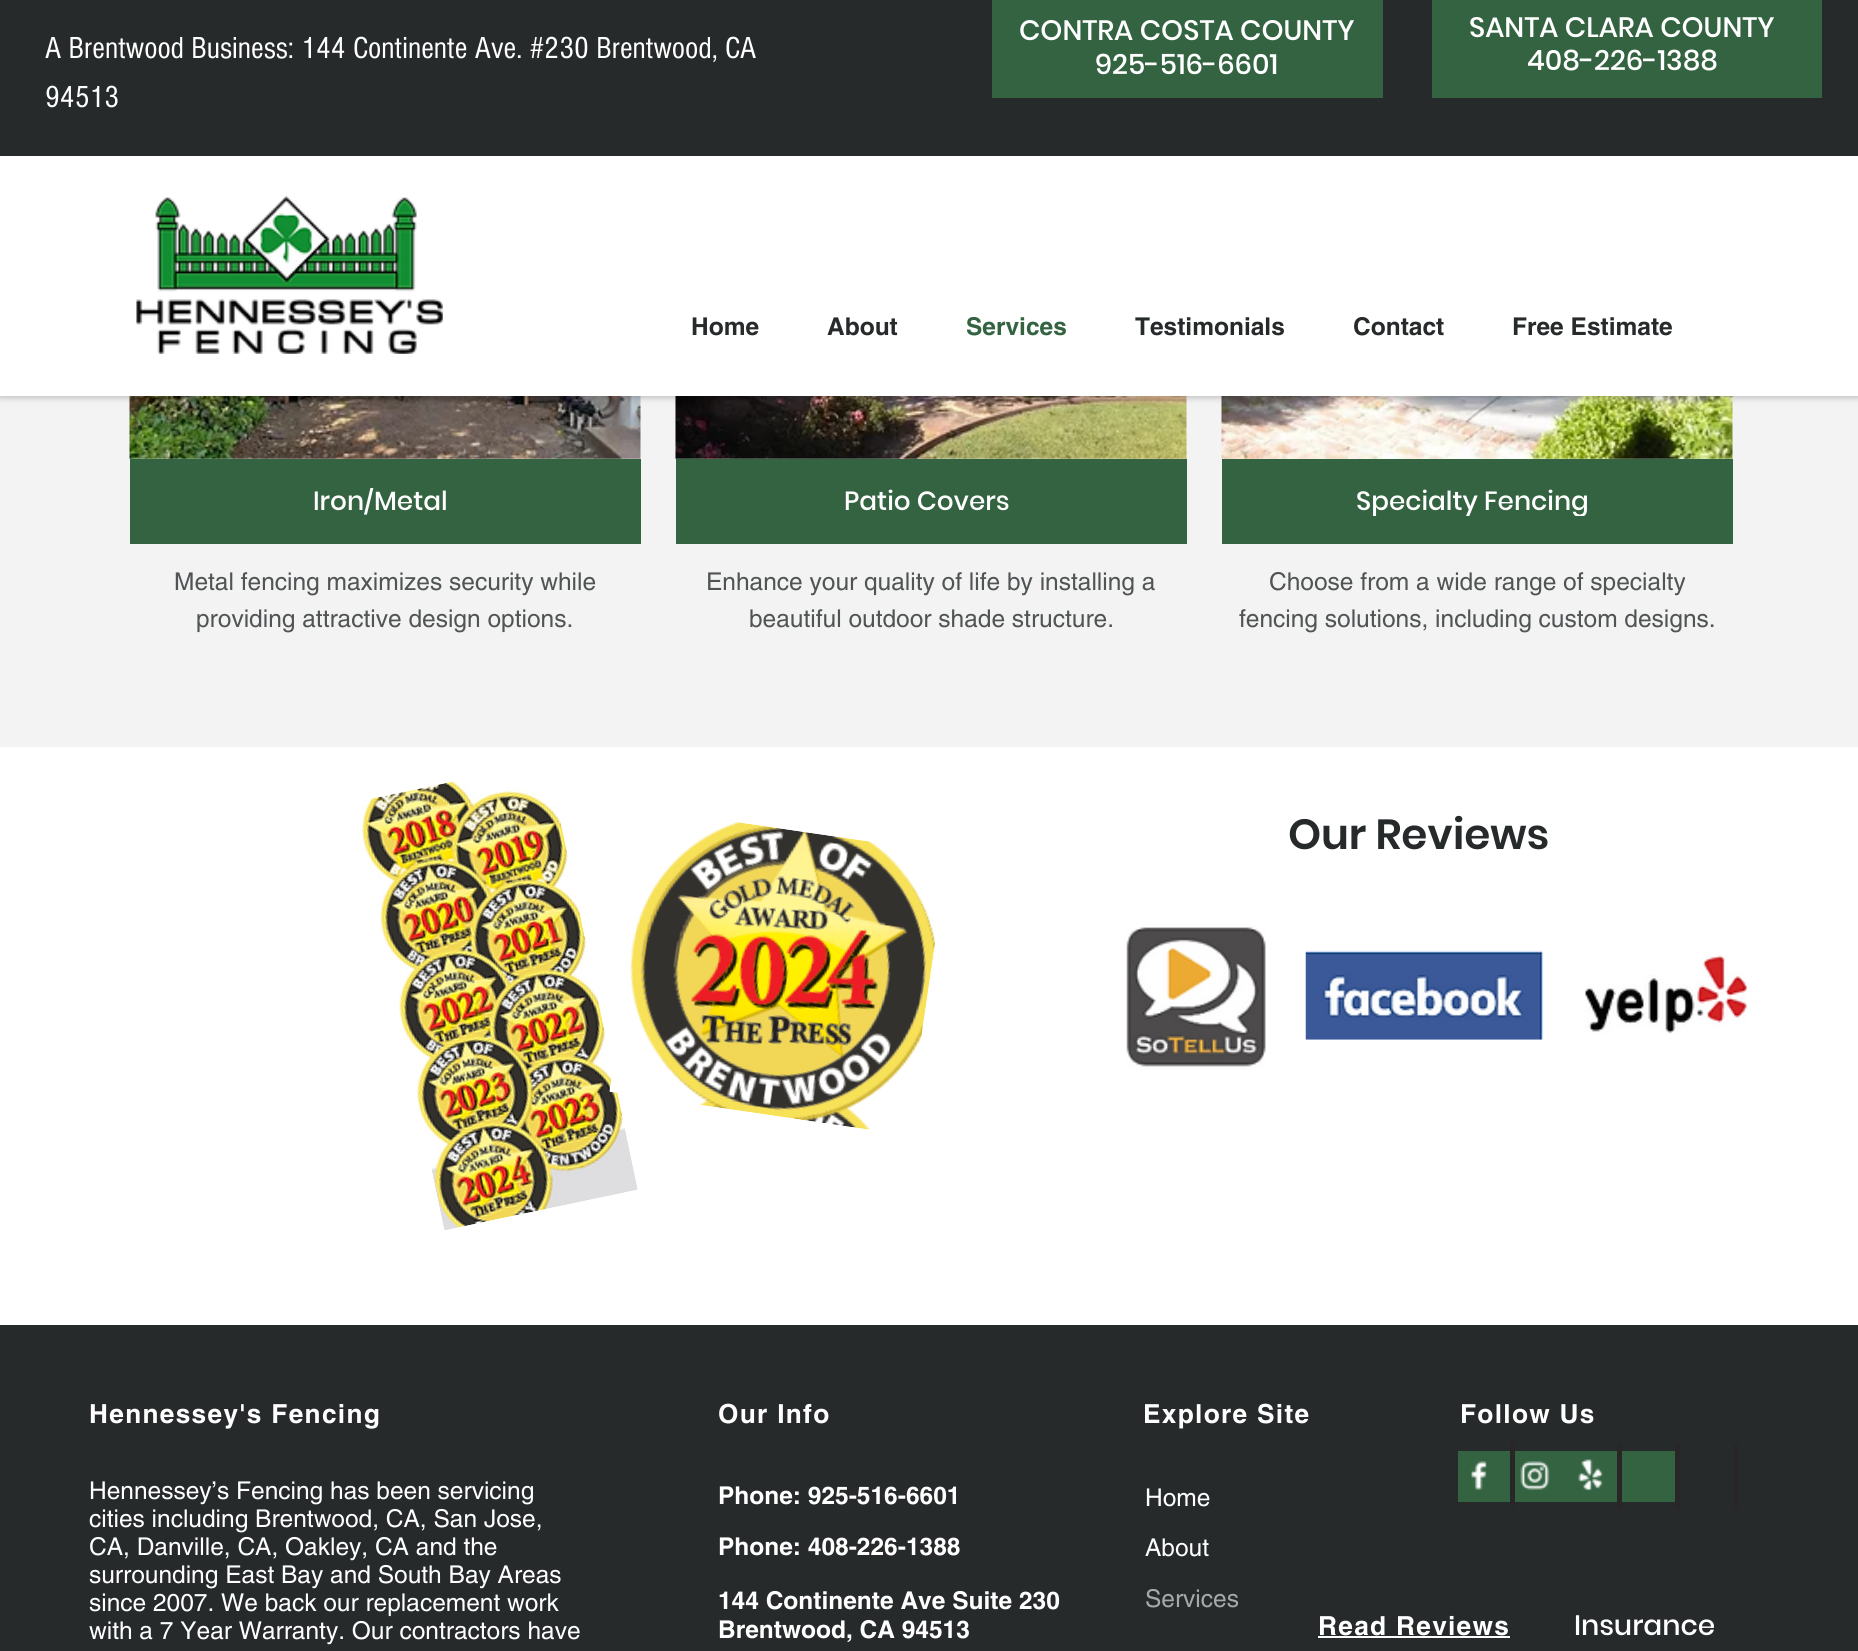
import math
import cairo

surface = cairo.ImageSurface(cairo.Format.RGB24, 1858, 1651)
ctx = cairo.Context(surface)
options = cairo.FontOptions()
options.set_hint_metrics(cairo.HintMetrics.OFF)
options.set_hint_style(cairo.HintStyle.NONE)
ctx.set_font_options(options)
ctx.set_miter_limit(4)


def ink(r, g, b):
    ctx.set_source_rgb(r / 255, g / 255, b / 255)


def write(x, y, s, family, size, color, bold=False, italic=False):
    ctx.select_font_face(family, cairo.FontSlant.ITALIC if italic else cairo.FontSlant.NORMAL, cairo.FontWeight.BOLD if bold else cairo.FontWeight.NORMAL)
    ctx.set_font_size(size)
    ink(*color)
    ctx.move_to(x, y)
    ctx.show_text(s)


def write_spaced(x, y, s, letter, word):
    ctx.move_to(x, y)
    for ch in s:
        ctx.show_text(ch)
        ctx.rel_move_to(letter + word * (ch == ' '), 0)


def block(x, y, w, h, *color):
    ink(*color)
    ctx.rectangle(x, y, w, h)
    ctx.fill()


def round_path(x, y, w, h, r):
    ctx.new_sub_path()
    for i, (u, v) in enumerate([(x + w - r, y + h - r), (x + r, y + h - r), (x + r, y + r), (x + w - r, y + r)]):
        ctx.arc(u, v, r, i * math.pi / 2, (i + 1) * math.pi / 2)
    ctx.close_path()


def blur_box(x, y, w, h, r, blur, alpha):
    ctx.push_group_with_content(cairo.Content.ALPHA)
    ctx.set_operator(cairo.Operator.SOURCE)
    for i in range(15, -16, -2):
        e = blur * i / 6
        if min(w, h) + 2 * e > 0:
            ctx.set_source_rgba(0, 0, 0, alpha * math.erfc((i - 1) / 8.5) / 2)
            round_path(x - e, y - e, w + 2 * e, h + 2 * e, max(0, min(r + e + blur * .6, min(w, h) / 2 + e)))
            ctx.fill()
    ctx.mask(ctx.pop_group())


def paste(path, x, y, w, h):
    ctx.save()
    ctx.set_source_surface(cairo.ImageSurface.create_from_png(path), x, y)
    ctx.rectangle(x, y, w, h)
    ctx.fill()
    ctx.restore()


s1 = dict(family="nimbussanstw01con", size=31.5, color=(255, 255, 255))
s2 = dict(family="Poppins Medium", size=28, color=(255, 255, 255))
s3 = dict(family="helvetica", size=24.5, color=(38, 42, 43), bold=True)
s4 = dict(family="helvetica", size=24.5, color=(51, 99, 65), bold=True)
s5 = dict(family="Poppins Medium", size=26.25, color=(255, 255, 255))
s6 = dict(family="helvetica", size=24.5, color=(80, 84, 85))
s7 = dict(family="Poppins SemiBold", size=42, color=(38, 42, 43))
s8 = dict(family="helvetica", size=24.5, color=(255, 255, 255))
s9 = dict(family="helvetica", size=24.5, color=(255, 255, 255), bold=True)
s10 = dict(family="helvetica", size=24.5, color=(165, 169, 170))

ink(255, 255, 255)
ctx.paint()
block(0, 396, 1858, 351, 243, 243, 243)
paste("pic2.png", 129, 396, 512, 63)
paste("pic3.png", 675, 396, 512, 63)
paste("pic4.png", 1221, 396, 512, 63)
ink(0, 0, 0)
blur_box(0, 2, 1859, 395, 0, 3.5, 0.27)
block(0, 156, 1858, 240, 255, 255, 255)
block(0, 0, 1858, 156, 38, 42, 43)
write(45, 58, "A Brentwood Business: 144 Continente Ave. #230 Brentwood, CA", **s1)
write(45, 107, "94513", **s1)
block(992, 0, 391, 98, 51, 99, 65)
write(1019, 40, "CONTRA COSTA COUNTY", **s2)
write(1095, 74, "925-516-6601", **s2)
block(1432, 0, 390, 98, 51, 99, 65)
write(1469, 37, "SANTA CLARA COUNTY", **s2)
write(1527, 70, "408-226-1388", **s2)
paste("pic1.png", 136, 196, 307, 158)
write(691, 335, "Home", **s3)
write(827, 335, "About", **s3)
write(966, 335, "Services", **s4)
write(1135, 335, "Testimonials", **s3)
write(1353, 335, "Contact", **s3)
write(1512, 335, "Free Estimate", **s3)
block(130, 459, 511, 85, 51, 99, 65)
ctx.save()
ctx.rectangle(313, 488, 135, 28)
ctx.clip()
write(313, 510, "Iron/Metal", **s5)
ctx.restore()
write(174, 590, "Metal fencing maximizes security while", **s6)
write(196, 627, "providing attractive design options.", **s6)
block(676, 459, 511, 85, 51, 99, 65)
write(844, 510, "Patio Covers", **s5)
write(706, 590, "Enhance your quality of life by installing a", **s6)
write(749, 627, "beautiful outdoor shade structure.", **s6)
block(1222, 459, 511, 85, 51, 99, 65)
ctx.save()
ctx.rectangle(1356, 488, 233, 28)
ctx.clip()
write(1356, 510, "Specialty Fencing", **s5)
ctx.restore()
write(1269, 590, "Choose from a wide range of specialty", **s6)
write(1239, 627, "fencing solutions, including custom designs.", **s6)
paste("pic5.png", 361, 781, 277, 449)
paste("pic6.png", 609, 822, 327, 308)
paste("pic7.png", 1126, 927, 140, 142)
write(1288, 849, "Our Reviews", **s7)
paste("pic8.png", 1305, 950, 239, 90)
paste("pic9.png", 1585, 955, 162, 79)
block(0, 1325, 1858, 326, 38, 42, 43)
ctx.select_font_face("helvetica", cairo.FontSlant.NORMAL, cairo.FontWeight.BOLD)
ctx.set_font_size(26.25)
ink(255, 255, 255)
write_spaced(89, 1423, "Hennessey's Fencing", 1.3, 0)
write_spaced(718, 1423, "Our Info", 1.3, 0)
write_spaced(1143, 1423, "Explore Site", 1.3, 0)
write_spaced(1460, 1423, "Follow Us", 1.3, 0)
block(1458, 1451, 217, 51, 51, 99, 65)
block(1510, 1442, 5, 65, 40, 38, 38)
write(89, 1499, "Hennessey’s Fencing has been servicing", **s8)
write(89, 1527, "cities including Brentwood, CA, San Jose,", **s8)
write(89, 1555, "CA, Danville, CA, Oakley, CA and the", **s8)
write(89, 1583, "surrounding East Bay and South Bay Areas", **s8)
write(89, 1611, "since 2007. We back our replacement work", **s8)
write(89, 1639, "with a 7 Year Warranty. Our contractors have", **s8)
write(718, 1504, "Phone: 925-516-6601", **s9)
write(1145, 1506, "Home", **s8)
write(1145, 1556, "About", **s8)
write(1145, 1607, "Services", **s10)
paste("pic10.png", 1471, 1461, 16, 29)
paste("pic11.png", 1520, 1461, 30, 29)
paste("pic12.png", 1578, 1459, 26, 32)
block(1617, 1444, 5, 65, 40, 38, 38)
block(1675, 1444, 5, 65, 40, 38, 38)
block(1733, 1444, 5, 65, 40, 38, 38)
write(718, 1555, "Phone: 408-226-1388", **s9)
write(718, 1609, "144 Continente Ave Suite 230", **s9)
write(718, 1638, "Brentwood, CA 94513", **s9)
ctx.set_font_size(26.25)
write_spaced(1318, 1635, "Read Reviews", 1.3, 0)
block(1318, 1636, 192, 2, 255, 255, 255)
write(1574, 1635, "Insurance", **s2)
surface.write_to_png("screenshot.png")
